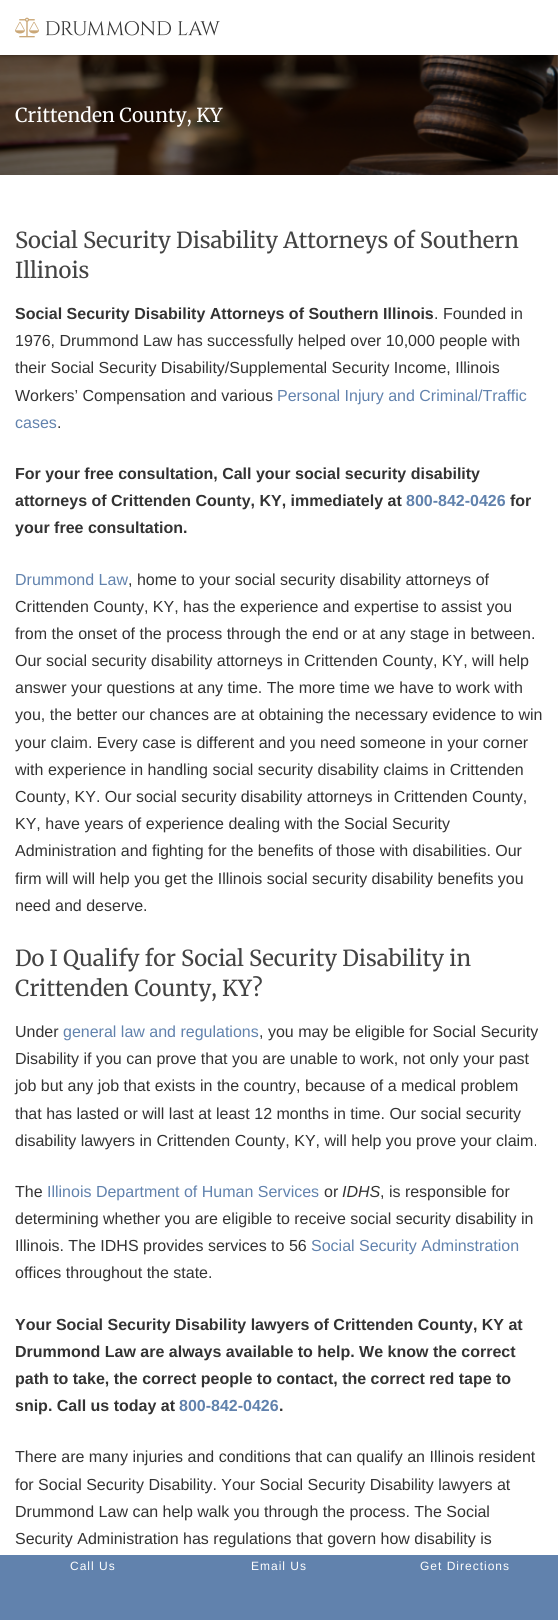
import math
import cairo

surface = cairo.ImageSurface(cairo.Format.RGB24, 558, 1620)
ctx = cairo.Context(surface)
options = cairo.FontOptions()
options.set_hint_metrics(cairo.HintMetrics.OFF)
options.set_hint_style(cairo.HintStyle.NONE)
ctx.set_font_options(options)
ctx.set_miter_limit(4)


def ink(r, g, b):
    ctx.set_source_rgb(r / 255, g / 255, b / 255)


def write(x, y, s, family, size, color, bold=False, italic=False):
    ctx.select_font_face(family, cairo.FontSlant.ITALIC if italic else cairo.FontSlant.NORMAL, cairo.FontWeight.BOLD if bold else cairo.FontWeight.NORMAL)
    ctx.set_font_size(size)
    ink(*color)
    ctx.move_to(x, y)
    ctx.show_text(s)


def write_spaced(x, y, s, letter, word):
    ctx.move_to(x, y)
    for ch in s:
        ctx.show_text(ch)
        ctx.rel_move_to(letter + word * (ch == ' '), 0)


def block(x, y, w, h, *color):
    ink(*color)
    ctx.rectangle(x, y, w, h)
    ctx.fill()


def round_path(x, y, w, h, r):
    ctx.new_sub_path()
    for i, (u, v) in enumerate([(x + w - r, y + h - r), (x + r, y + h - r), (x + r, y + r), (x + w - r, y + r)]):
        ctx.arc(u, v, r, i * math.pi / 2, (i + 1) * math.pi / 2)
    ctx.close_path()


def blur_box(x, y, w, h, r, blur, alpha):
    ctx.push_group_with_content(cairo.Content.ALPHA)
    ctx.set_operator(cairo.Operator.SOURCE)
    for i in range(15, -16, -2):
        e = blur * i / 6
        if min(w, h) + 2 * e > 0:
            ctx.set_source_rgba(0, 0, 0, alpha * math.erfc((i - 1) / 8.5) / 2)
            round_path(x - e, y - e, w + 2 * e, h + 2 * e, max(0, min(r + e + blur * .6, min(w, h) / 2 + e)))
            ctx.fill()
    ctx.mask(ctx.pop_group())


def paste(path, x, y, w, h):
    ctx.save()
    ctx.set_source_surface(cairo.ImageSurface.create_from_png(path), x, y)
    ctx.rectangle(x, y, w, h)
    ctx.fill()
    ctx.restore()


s1 = dict(family="Merriweather", size=19.25, color=(255, 255, 255))
s2 = dict(family="Merriweather", size=22, color=(68, 68, 68))
s3 = dict(family="Liberation Sans", size=16, color=(51, 51, 51), bold=True)
s4 = dict(family="Liberation Sans", size=16, color=(51, 51, 51))
s5 = dict(family="Liberation Sans", size=16, color=(97, 130, 173))
s6 = dict(family="Liberation Sans", size=16, color=(97, 130, 173), bold=True)
s7 = dict(family="Liberation Sans", size=16, color=(51, 51, 51), italic=True)

ink(255, 255, 255)
ctx.paint()
paste("pic2.png", 0, 55, 558, 120)
ctx.set_source_rgba(0, 0, 0, 0.45)
ctx.rectangle(0, 55, 558, 120)
ctx.fill()
ctx.save()
ctx.rectangle(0, 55, 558, 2)
ctx.clip()
ink(0, 0, 0)
blur_box(2, 2, 554, 51, 0, 2, 1)
ctx.restore()
paste("pic1.png", 15, 17, 205, 21)
write(15, 122, "Crittenden County, KY", **s1)
write(15, 248, "Social Security Disability Attorneys of Southern", **s2)
write(15, 278, "Illinois", **s2)
write(15, 319, "Social Security Disability Attorneys of Southern Illinois", **s3)
write(434, 319, ". Founded in", **s4)
write(15, 346, "1976, Drummond Law has successfully helped over 10,000 people with", **s4)
write(15, 373, "their Social Security Disability/Supplemental Security Income, Illinois", **s4)
write(15, 401, "Workers’ Compensation and various", **s4)
write(277, 401, "Personal Injury and Criminal/Traffic", **s5)
write(15, 428, "cases", **s5)
write(57, 428, ".", **s4)
write(15, 479, "For your free consultation, Call your social security disability", **s3)
write(15, 506, "attorneys of Crittenden County, KY, immediately at", **s3)
write(406, 506, "800-842-0426", **s6)
write(510, 506, "for", **s3)
write(15, 533, "your free consultation.", **s3)
write(15, 585, "Drummond Law", **s5)
write(128, 585, ", home to your social security disability attorneys of", **s4)
write(15, 612, "Crittenden County, KY, has the experience and expertise to assist you", **s4)
write(15, 639, "from the onset of the process through the end or at any stage in between.", **s4)
write(15, 666, "Our social security disability attorneys in Crittenden County, KY, will help", **s4)
write(15, 693, "answer your questions at any time. The more time we have to work with", **s4)
write(15, 720, "you, the better our chances are at obtaining the necessary evidence to win", **s4)
write(15, 748, "your claim. Every case is different and you need someone in your corner", **s4)
write(15, 775, "with experience in handling social security disability claims in Crittenden", **s4)
write(15, 802, "County, KY. Our social security disability attorneys in Crittenden County,", **s4)
write(15, 829, "KY, have years of experience dealing with the Social Security", **s4)
write(15, 856, "Administration and fighting for the benefits of those with disabilities. Our", **s4)
write(15, 884, "firm will will help you get the Illinois social security disability benefits you", **s4)
write(15, 911, "need and deserve.", **s4)
write(15, 966, "Do I Qualify for Social Security Disability in", **s2)
write(15, 996, "Crittenden County, KY?", **s2)
write(15, 1037, "Under", **s4)
write(63, 1037, "general law and regulations", **s5)
write(259, 1037, ", you may be eligible for Social Security", **s4)
write(15, 1064, "Disability if you can prove that you are unable to work, not only your past", **s4)
write(15, 1091, "job but any job that exists in the country, because of a medical problem", **s4)
write(15, 1119, "that has lasted or will last at least 12 months in time. Our social security", **s4)
write(15, 1146, "disability lawyers in Crittenden County, KY, will help you prove your claim.", **s4)
write(15, 1197, "The", **s4)
write(47, 1197, "Illinois Department of Human Services", **s5)
write(324, 1197, "or", **s4)
write(342, 1197, "IDHS", **s7)
write(380, 1197, ", is responsible for", **s4)
write(15, 1224, "determining whether you are eligible to receive social security disability in", **s4)
write(15, 1251, "Illinois. The IDHS provides services to 56", **s4)
write(311, 1251, "Social Security Adminstration", **s5)
write(15, 1278, "offices throughout the state.", **s4)
write(15, 1330, "Your Social Security Disability lawyers of Crittenden County, KY at", **s3)
write(15, 1357, "Drummond Law are always available to help. We know the correct", **s3)
write(15, 1384, "path to take, the correct people to contact, the correct red tape to", **s3)
write(15, 1411, "snip. Call us today at", **s3)
write(179, 1411, "800-842-0426", **s6)
write(279, 1411, ".", **s3)
write(15, 1462, "There are many injuries and conditions that can qualify an Illinois resident", **s4)
write(15, 1490, "for Social Security Disability. Your Social Security Disability lawyers at", **s4)
write(15, 1517, "Drummond Law can help walk you through the process. The Social", **s4)
write(15, 1544, "Security Administration has regulations that govern how disability is", **s4)
block(0, 1555, 558, 65, 97, 130, 173)
ctx.set_font_size(12)
ink(255, 255, 255)
write_spaced(70, 1570, "Call Us", 1, 0)
write_spaced(251, 1570, "Email Us", 1, 0)
write_spaced(420, 1570, "Get Directions", 1, 0)
surface.write_to_png("screenshot.png")
